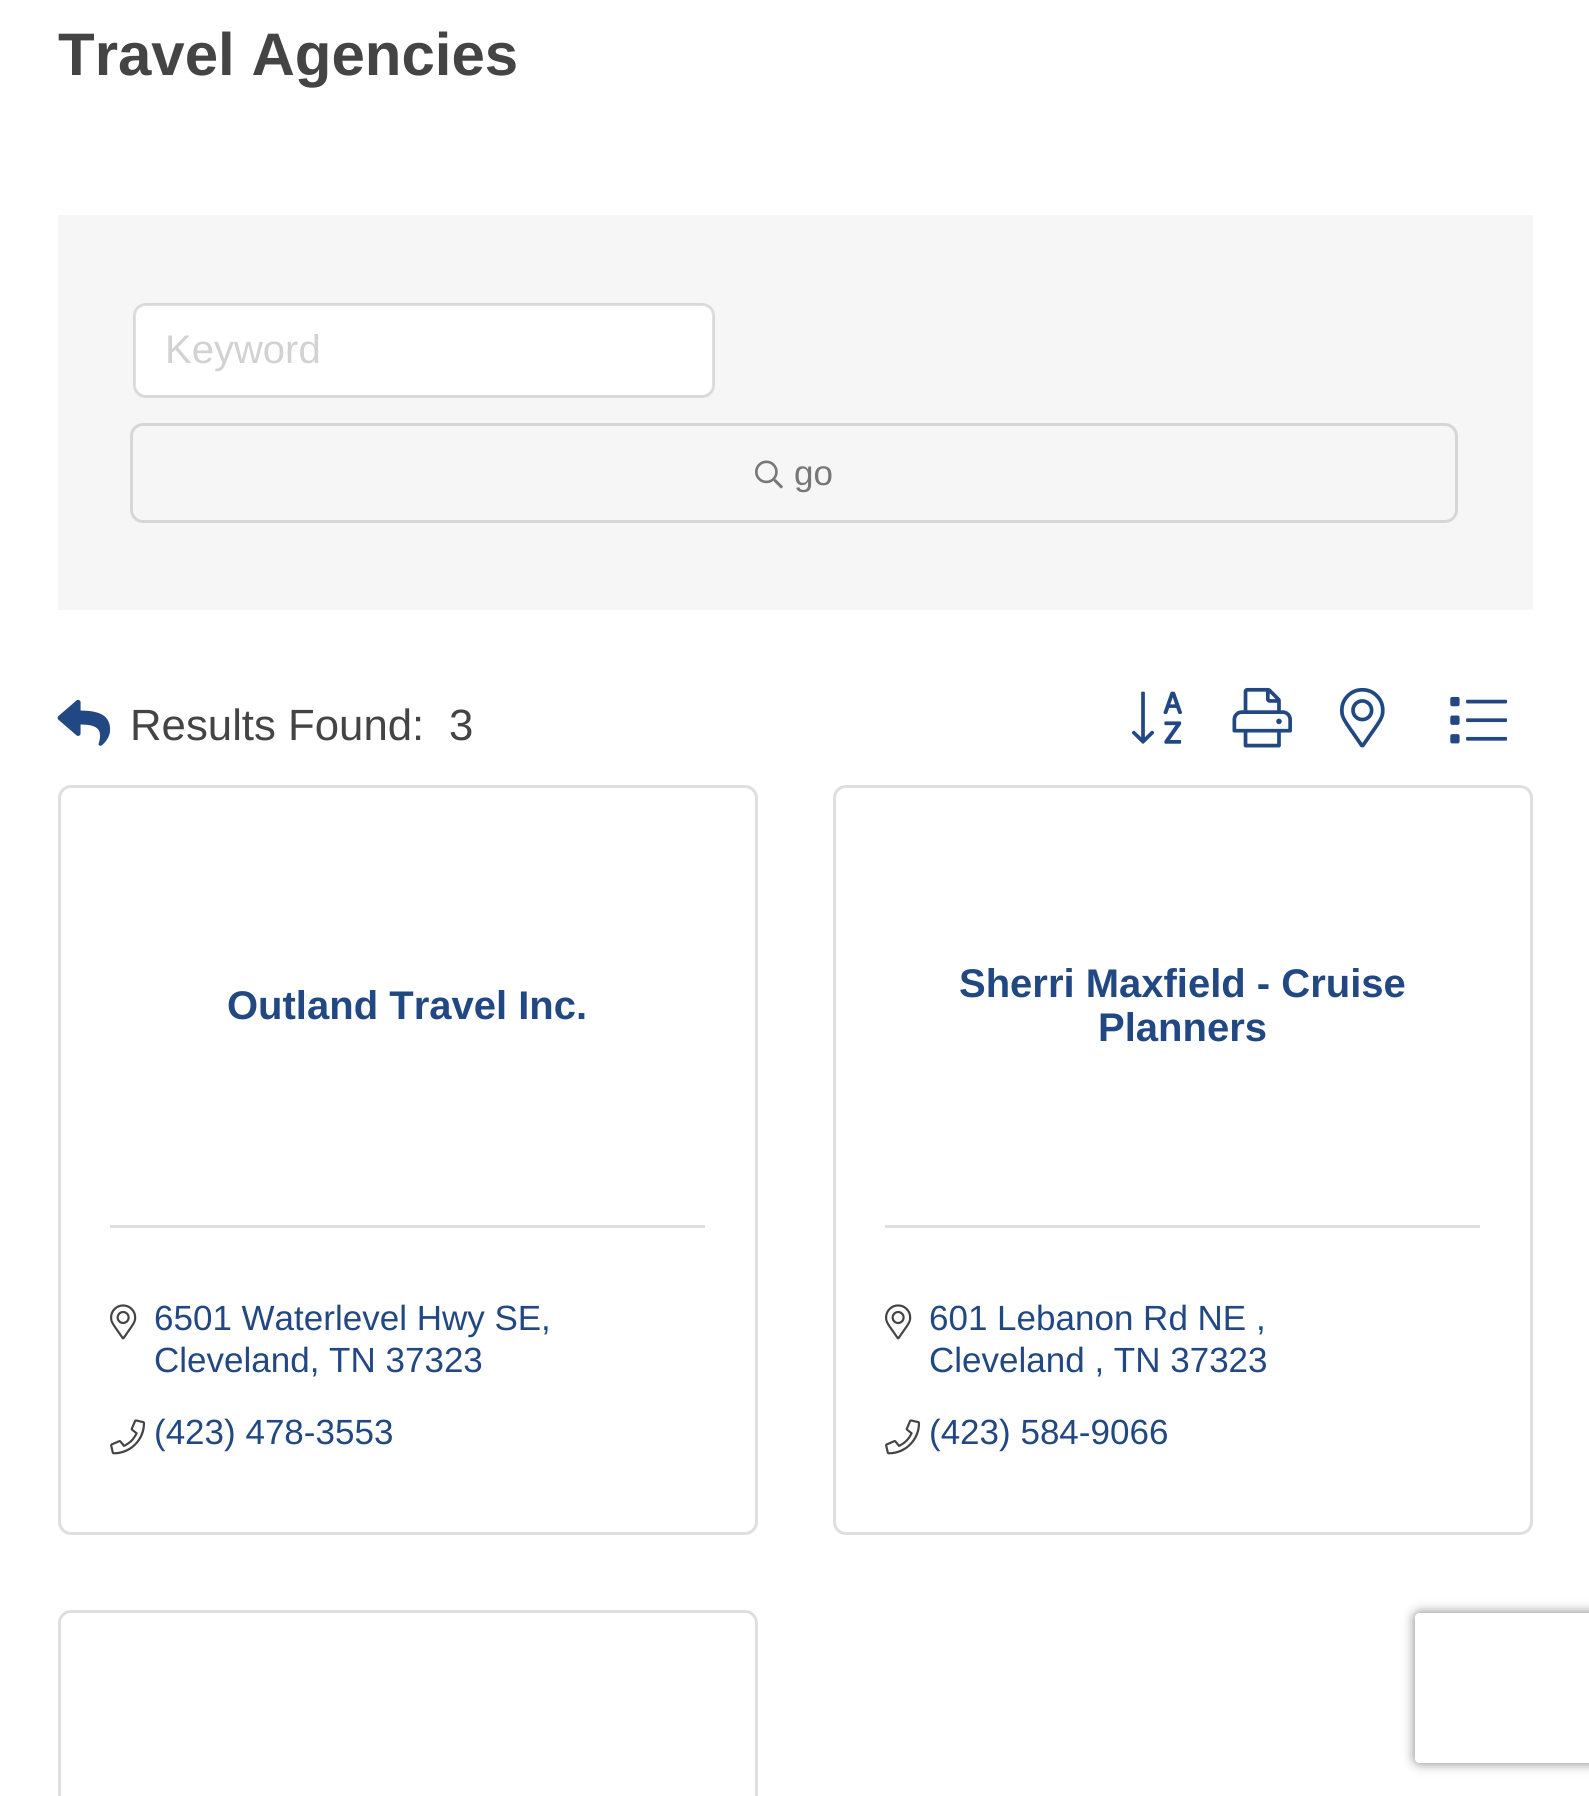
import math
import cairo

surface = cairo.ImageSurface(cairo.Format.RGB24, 1589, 1796)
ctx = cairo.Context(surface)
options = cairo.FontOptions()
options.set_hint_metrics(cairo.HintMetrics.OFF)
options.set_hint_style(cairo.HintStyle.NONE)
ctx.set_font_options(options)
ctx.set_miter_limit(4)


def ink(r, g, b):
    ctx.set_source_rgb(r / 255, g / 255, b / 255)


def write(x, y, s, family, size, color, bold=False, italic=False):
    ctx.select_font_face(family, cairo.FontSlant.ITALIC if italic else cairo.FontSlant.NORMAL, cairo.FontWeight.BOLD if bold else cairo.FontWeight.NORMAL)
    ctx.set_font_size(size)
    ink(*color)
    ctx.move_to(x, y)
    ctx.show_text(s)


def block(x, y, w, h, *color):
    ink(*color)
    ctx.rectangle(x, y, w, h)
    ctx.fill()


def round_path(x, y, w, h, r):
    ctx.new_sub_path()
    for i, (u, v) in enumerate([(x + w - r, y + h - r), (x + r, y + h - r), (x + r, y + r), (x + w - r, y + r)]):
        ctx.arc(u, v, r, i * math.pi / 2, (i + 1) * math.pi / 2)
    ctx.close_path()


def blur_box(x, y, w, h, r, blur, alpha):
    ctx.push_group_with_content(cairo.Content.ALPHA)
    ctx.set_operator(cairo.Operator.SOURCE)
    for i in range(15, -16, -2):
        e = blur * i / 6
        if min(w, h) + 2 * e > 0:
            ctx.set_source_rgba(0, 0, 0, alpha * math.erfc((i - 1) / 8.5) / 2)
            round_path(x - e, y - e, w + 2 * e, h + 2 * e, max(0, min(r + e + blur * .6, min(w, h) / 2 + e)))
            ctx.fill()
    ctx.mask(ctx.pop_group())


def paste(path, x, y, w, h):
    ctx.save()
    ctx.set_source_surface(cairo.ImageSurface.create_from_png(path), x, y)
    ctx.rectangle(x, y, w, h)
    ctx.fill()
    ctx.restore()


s1 = dict(family="Liberation Sans", size=60, color=(68, 68, 68), bold=True)
s2 = dict(family="Liberation Sans", size=40, color=(210, 210, 210))
s3 = dict(family="Liberation Sans", size=35, color=(119, 119, 119))
s4 = dict(family="Liberation Sans", size=43.75, color=(68, 68, 68))
s5 = dict(family="Liberation Sans", size=40, color=(34, 72, 132), bold=True)
s6 = dict(family="Liberation Sans", size=35, color=(34, 72, 132))

ink(255, 255, 255)
ctx.paint()
write(58, 75, "Travel Agencies", **s1)
block(58, 215, 1475, 395, 246, 246, 246)
ink(255, 255, 255)
round_path(135, 305, 578, 90, 10)
ctx.fill()
round_path(134.5, 304.5, 579, 92, 11.5)
ctx.set_source_rgba(0, 0, 0, 0.12)
ctx.set_line_width(3)
ctx.stroke()
write(165, 363, "Keyword", **s2)
round_path(131.5, 424.5, 1325, 97, 11.5)
ink(214, 214, 214)
ctx.stroke()
paste("pic1.png", 755, 460, 28, 29)
write(794, 485, "go", **s3)
paste("pic2.png", 57, 699, 54, 47)
write(130, 740, "Results Found:", **s4)
write(449, 740, "3", **s4)
paste("pic3.png", 1131, 691, 51, 53)
paste("pic4.png", 1232, 687, 60, 61)
paste("pic5.png", 1340, 687, 45, 61)
paste("pic6.png", 1450, 696, 57, 48)
round_path(59.5, 786.5, 697, 747, 11.5)
ink(223, 223, 223)
ctx.stroke()
write(227, 1019, "Outland Travel Inc.", **s5)
block(110, 1225, 595, 3, 223, 223, 223)
paste("pic7.png", 110, 1304, 27, 36)
write(154, 1330, "6501 Waterlevel Hwy SE,", **s6)
write(154, 1372, "Cleveland, TN 37323", **s6)
paste("pic8.png", 110, 1419, 36, 36)
write(154, 1444, "(423) 478-3553", **s6)
round_path(834.5, 786.5, 697, 747, 11.5)
ink(223, 223, 223)
ctx.stroke()
write(959, 997, "Sherri Maxfield - Cruise", **s5)
write(1098, 1041, "Planners", **s5)
block(885, 1225, 595, 3, 223, 223, 223)
paste("pic7.png", 885, 1304, 27, 36)
write(929, 1330, "601 Lebanon Rd NE ,", **s6)
write(929, 1372, "Cleveland , TN 37323", **s6)
paste("pic8.png", 885, 1419, 36, 36)
write(929, 1444, "(423) 584-9066", **s6)
round_path(59.5, 1611.5, 697, 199, 11.5)
ink(223, 223, 223)
ctx.stroke()
ctx.save()
ctx.set_fill_rule(cairo.FillRule.EVEN_ODD)
ctx.new_path()
ctx.move_to(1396, 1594)
ctx.line_to(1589, 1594)
ctx.line_to(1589, 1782)
ctx.line_to(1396, 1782)
ctx.close_path()
ctx.move_to(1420, 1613)
ctx.line_to(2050, 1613)
ctx.curve_to(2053, 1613, 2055, 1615, 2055, 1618)
ctx.line_to(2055, 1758)
ctx.curve_to(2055, 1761, 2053, 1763, 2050, 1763)
ctx.line_to(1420, 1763)
ctx.curve_to(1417, 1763, 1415, 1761, 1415, 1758)
ctx.line_to(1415, 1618)
ctx.curve_to(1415, 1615, 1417, 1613, 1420, 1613)
ctx.close_path()
ctx.clip()
ink(128, 128, 128)
blur_box(1415, 1613, 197, 150, 5, 6, 1)
ctx.restore()
surface.write_to_png("screenshot.png")
